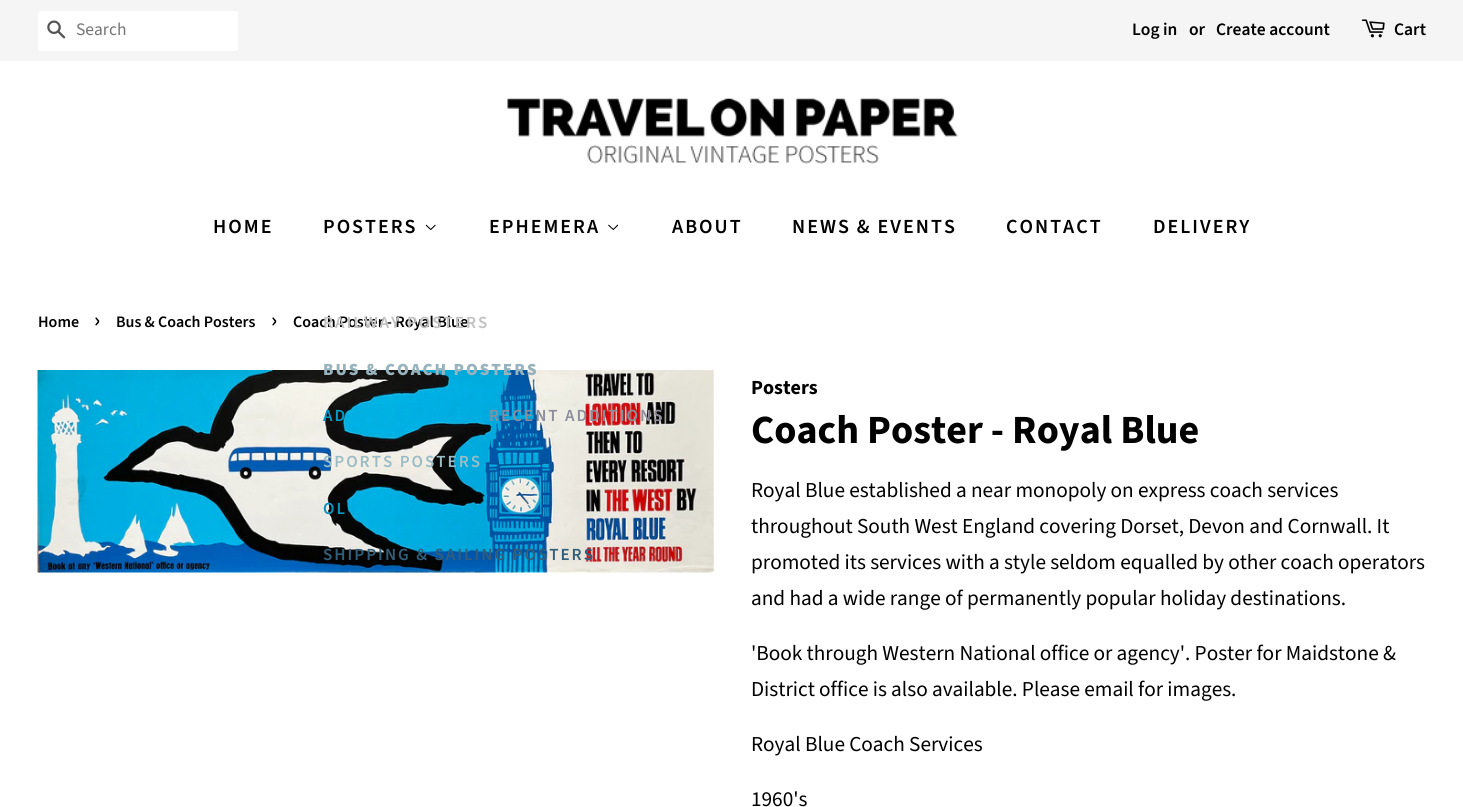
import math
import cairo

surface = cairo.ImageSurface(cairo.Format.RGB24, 1463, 807)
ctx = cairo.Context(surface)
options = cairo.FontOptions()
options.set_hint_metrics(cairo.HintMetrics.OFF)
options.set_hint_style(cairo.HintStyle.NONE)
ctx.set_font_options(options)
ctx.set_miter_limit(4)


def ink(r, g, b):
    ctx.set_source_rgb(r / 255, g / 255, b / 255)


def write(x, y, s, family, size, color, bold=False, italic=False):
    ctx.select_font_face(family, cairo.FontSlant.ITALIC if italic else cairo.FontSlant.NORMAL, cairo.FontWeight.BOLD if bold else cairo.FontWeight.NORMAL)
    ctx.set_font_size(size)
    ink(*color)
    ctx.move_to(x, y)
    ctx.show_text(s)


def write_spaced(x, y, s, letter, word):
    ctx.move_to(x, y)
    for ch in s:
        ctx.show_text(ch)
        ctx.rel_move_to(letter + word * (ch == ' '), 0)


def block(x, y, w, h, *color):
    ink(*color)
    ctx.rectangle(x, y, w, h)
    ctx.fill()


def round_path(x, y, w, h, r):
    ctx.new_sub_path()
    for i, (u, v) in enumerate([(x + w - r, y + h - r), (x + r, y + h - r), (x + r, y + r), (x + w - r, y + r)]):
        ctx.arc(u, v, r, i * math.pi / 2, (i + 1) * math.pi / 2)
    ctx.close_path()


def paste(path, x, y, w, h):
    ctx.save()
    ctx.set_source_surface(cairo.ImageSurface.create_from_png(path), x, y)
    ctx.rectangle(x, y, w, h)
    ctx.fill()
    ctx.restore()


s1 = dict(family="Source Sans Pro", size=17.5, color=(117, 117, 117))
s2 = dict(family="Source Sans Pro SemiBold", size=17.5, color=(0, 0, 0))
s3 = dict(family="Source Sans Pro SemiBold", size=16, color=(0, 0, 0))
s4 = dict(family="Source Sans Pro SemiBold", size=22, color=(0, 0, 0))
s5 = dict(family="Source Sans Pro", size=20, color=(0, 0, 0), bold=True)
s6 = dict(family="Source Sans Pro", size=40, color=(0, 0, 0), bold=True)
s7 = dict(family="Source Sans Pro", size=21.25, color=(0, 0, 0))

ink(255, 255, 255)
ctx.paint()
block(0, 0, 1463, 61, 245, 245, 245)
ink(255, 255, 255)
round_path(38, 11, 200, 40, 2.5)
ctx.fill()
paste("pic1.png", 47, 20, 19, 19)
write(76, 35, "Search", **s1)
write(1132, 35, "Log in", **s2)
write(1189, 35, "or", **s2)
write(1216, 35, "Create account", **s2)
paste("pic2.png", 1361, 19, 24, 19)
write(1394, 35, "Cart", **s2)
paste("pic3.png", 507, 98, 451, 66)
ctx.set_font_size(20)
write_spaced(213, 233, "HOME", 2, 0)
write_spaced(323, 233, "POSTERS", 2, 0)
paste("pic4.png", 425, 224, 11, 7)
write(293, 327, "Coach Poster - Royal Blue", **s3)
ctx.set_font_size(17)
ink(193, 193, 193)
write_spaced(323, 328, "RAILWAY POSTERS", 2, 0)
paste("pic6.png", 37, 370, 677, 203)
ctx.select_font_face("Source Sans Pro Black")
ink(152, 179, 189)
write_spaced(323, 375, "BUS & COACH POSTERS", 2, 0)
ctx.select_font_face("Source Sans Pro SemiBold")
ink(6, 152, 199)
write_spaced(323, 421, "AD", 2, 0)
ink(156, 188, 197)
write_spaced(323, 467, "SPORTS POSTERS", 2, 0)
ink(12, 148, 191)
write_spaced(323, 514, "OL", 2, 0)
ink(51, 94, 122)
write_spaced(323, 560, "SHIPPING & SAILING POSTERS", 2, 0)
ctx.set_font_size(20)
ink(0, 0, 0)
write_spaced(489, 233, "EPHEMERA", 2, 0)
paste("pic5.png", 608, 224, 11, 7)
ctx.set_font_size(17)
ink(141, 142, 156)
write_spaced(489, 421, "RECENT ADDITIONS", 2, 0)
ctx.set_font_size(20)
ink(0, 0, 0)
write_spaced(672, 233, "ABOUT", 2, 0)
write_spaced(792, 233, "NEWS & EVENTS", 2, 0)
write_spaced(1006, 233, "CONTACT", 2, 0)
write_spaced(1153, 233, "DELIVERY", 2, 0)
write(38, 327, "Home", **s3)
write(94, 327, "›", **s4)
write(116, 327, "Bus & Coach Posters", **s3)
write(271, 327, "›", **s4)
write(751, 394, "Posters", **s5)
write(751, 443, "Coach Poster - Royal Blue", **s6)
write(751, 497, "Royal Blue established a near monopoly on express coach services", **s7)
write(751, 533, "throughout South West England covering Dorset, Devon and Cornwall. It", **s7)
write(751, 569, "promoted its services with a style seldom equalled by other coach operators", **s7)
write(751, 605, "and had a wide range of permanently popular holiday destinations.", **s7)
write(751, 660, "'Book through Western National office or agency'. Poster for Maidstone &", **s7)
write(751, 696, "District office is also available. Please email for images.", **s7)
write(751, 751, "Royal Blue Coach Services", **s7)
write(751, 806, "1960's", **s7)
surface.write_to_png("screenshot.png")
